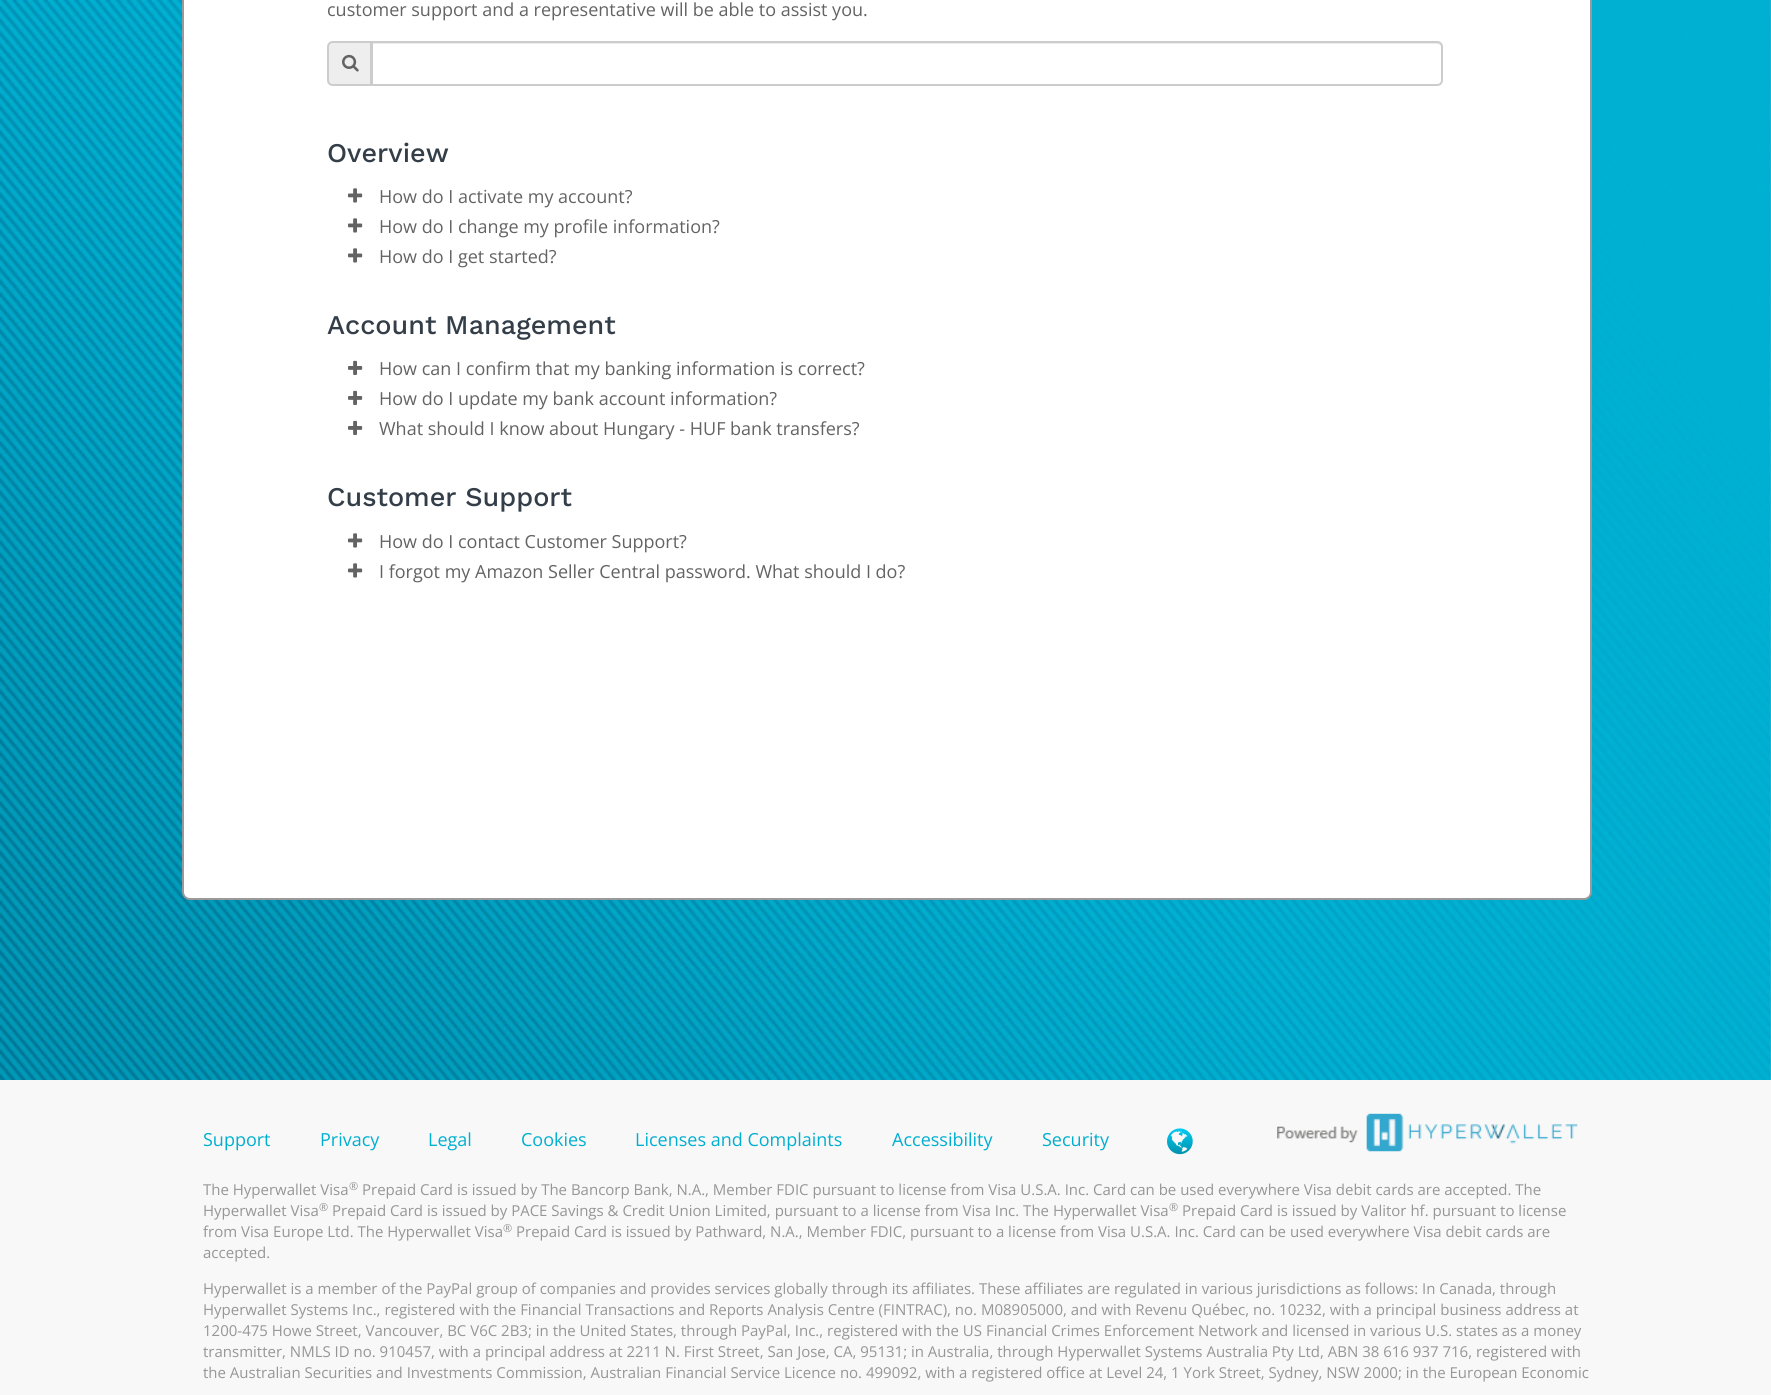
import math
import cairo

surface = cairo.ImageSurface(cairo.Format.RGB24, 1771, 1395)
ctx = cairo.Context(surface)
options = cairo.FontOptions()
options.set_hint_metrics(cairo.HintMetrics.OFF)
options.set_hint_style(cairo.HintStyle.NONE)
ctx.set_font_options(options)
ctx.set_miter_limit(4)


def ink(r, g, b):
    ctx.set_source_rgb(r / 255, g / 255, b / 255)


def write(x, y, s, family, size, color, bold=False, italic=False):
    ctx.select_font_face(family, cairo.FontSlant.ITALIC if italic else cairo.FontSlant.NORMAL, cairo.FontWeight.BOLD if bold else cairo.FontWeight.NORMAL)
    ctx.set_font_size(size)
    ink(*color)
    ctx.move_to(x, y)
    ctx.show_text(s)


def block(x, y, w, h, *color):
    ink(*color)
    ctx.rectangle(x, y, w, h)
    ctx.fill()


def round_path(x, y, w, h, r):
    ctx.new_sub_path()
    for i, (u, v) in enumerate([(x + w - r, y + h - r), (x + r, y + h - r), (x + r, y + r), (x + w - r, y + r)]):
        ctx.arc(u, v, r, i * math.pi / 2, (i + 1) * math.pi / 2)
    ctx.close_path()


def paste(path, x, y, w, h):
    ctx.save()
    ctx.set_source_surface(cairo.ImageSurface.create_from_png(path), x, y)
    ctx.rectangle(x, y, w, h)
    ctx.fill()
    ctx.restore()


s1 = dict(family="Open Sans", size=18, color=(99, 99, 99))
s2 = dict(family="Work Sans Medium", size=27, color=(51, 62, 72))
s3 = dict(family="Open Sans", size=18, color=(0, 175, 208))
s4 = dict(family="Open Sans", size=15, color=(150, 150, 150))
s5 = dict(family="Open Sans", size=11, color=(150, 150, 150))

ink(255, 255, 255)
ctx.paint()
paste("pic1.png", 0, 0, 1771, 1080)
ink(255, 255, 255)
round_path(183, -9, 1408, 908, 7)
ctx.fill_preserve()
ink(153, 153, 153)
ctx.stroke()
write(327, 16, "customer support and a representative will be able to assist you.", **s1)
ink(238, 238, 238)
ctx.new_path()
ctx.move_to(333, 42)
ctx.line_to(371, 42)
ctx.line_to(371, 85)
ctx.line_to(333, 85)
ctx.curve_to(330, 85, 328, 83, 328, 80)
ctx.line_to(328, 47)
ctx.curve_to(328, 44, 330, 42, 333, 42)
ctx.close_path()
ctx.fill_preserve()
ink(204, 204, 204)
ctx.stroke()
paste("pic2.png", 342, 54, 17, 18)
ink(255, 255, 255)
ctx.new_path()
ctx.move_to(371, 41)
ctx.line_to(1437, 41)
ctx.curve_to(1440.5, 41, 1443, 43.5, 1443, 47)
ctx.line_to(1443, 80)
ctx.curve_to(1443, 83.5, 1440.5, 86, 1437, 86)
ctx.line_to(371, 86)
ctx.close_path()
ctx.fill()
ink(236, 236, 236)
ctx.new_path()
ctx.move_to(372, 44)
ctx.line_to(1437, 44)
ctx.curve_to(1439, 44, 1442, 46, 1442, 48)
ctx.curve_to(1442, 45, 1440, 42, 1437, 42)
ctx.line_to(372, 42)
ctx.close_path()
ctx.fill()
ctx.new_path()
ctx.move_to(372, 42)
ctx.line_to(1437, 42)
ctx.curve_to(1440, 42, 1442, 44, 1442, 47)
ctx.line_to(1442, 80)
ctx.curve_to(1442, 83, 1440, 85, 1437, 85)
ctx.line_to(372, 85)
ctx.close_path()
ink(204, 204, 204)
ctx.stroke()
write(327, 162, "Overview", **s2)
paste("pic3.png", 348, 188, 15, 15)
write(379, 203, "How do I activate my account?", **s1)
paste("pic3.png", 348, 218, 15, 15)
write(379, 233, "How do I change my profile information?", **s1)
paste("pic3.png", 348, 248, 15, 15)
write(379, 263, "How do I get started?", **s1)
write(327, 334, "Account Management", **s2)
paste("pic4.png", 348, 360, 15, 15)
write(379, 375, "How can I confirm that my banking information is correct?", **s1)
paste("pic4.png", 348, 390, 15, 15)
write(379, 405, "How do I update my bank account information?", **s1)
paste("pic4.png", 348, 420, 15, 15)
write(379, 435, "What should I know about Hungary - HUF bank transfers?", **s1)
write(327, 506, "Customer Support", **s2)
paste("pic3.png", 348, 533, 15, 15)
write(379, 548, "How do I contact Customer Support?", **s1)
paste("pic3.png", 348, 563, 15, 15)
write(379, 578, "I forgot my Amazon Seller Central password. What should I do?", **s1)
block(0, 1080, 1771, 315, 248, 248, 248)
write(203, 1146, "Support", **s3)
write(320, 1146, "Privacy", **s3)
write(428, 1146, "Legal", **s3)
write(521, 1146, "Cookies", **s3)
write(635, 1146, "Licenses and Complaints", **s3)
write(892, 1146, "Accessibility", **s3)
write(1042, 1146, "Security", **s3)
paste("pic5.png", 1167, 1128, 26, 27)
paste("pic6.png", 1277, 1113, 301, 39)
write(203, 1195, "The Hyperwallet Visa", **s4)
write(349, 1190, "®", **s5)
write(362, 1195, "Prepaid Card is issued by The Bancorp Bank, N.A., Member FDIC pursuant to license from Visa U.S.A. Inc. Card can be used everywhere Visa debit cards are accepted. The", **s4)
write(203, 1216, "Hyperwallet Visa", **s4)
write(319, 1211, "®", **s5)
write(332, 1216, "Prepaid Card is issued by PACE Savings & Credit Union Limited, pursuant to a license from Visa Inc. The Hyperwallet Visa", **s4)
write(1169, 1211, "®", **s5)
write(1182, 1216, "Prepaid Card is issued by Valitor hf. pursuant to license", **s4)
write(203, 1237, "from Visa Europe Ltd. The Hyperwallet Visa", **s4)
write(503, 1232, "®", **s5)
write(516, 1237, "Prepaid Card is issued by Pathward, N.A., Member FDIC, pursuant to a license from Visa U.S.A. Inc. Card can be used everywhere Visa debit cards are", **s4)
write(203, 1258, "accepted.", **s4)
write(203, 1294, "Hyperwallet is a member of the PayPal group of companies and provides services globally through its affiliates. These affiliates are regulated in various jurisdictions as follows: In Canada, through", **s4)
write(203, 1315, "Hyperwallet Systems Inc., registered with the Financial Transactions and Reports Analysis Centre (FINTRAC), no. M08905000, and with Revenu Québec, no. 10232, with a principal business address at", **s4)
write(203, 1336, "1200-475 Howe Street, Vancouver, BC V6C 2B3; in the United States, through PayPal, Inc., registered with the US Financial Crimes Enforcement Network and licensed in various U.S. states as a money", **s4)
write(203, 1357, "transmitter, NMLS ID no. 910457, with a principal address at 2211 N. First Street, San Jose, CA, 95131; in Australia, through Hyperwallet Systems Australia Pty Ltd, ABN 38 616 937 716, registered with", **s4)
write(203, 1378, "the Australian Securities and Investments Commission, Australian Financial Service Licence no. 499092, with a registered office at Level 24, 1 York Street, Sydney, NSW 2000; in the European Economic", **s4)
surface.write_to_png("screenshot.png")
